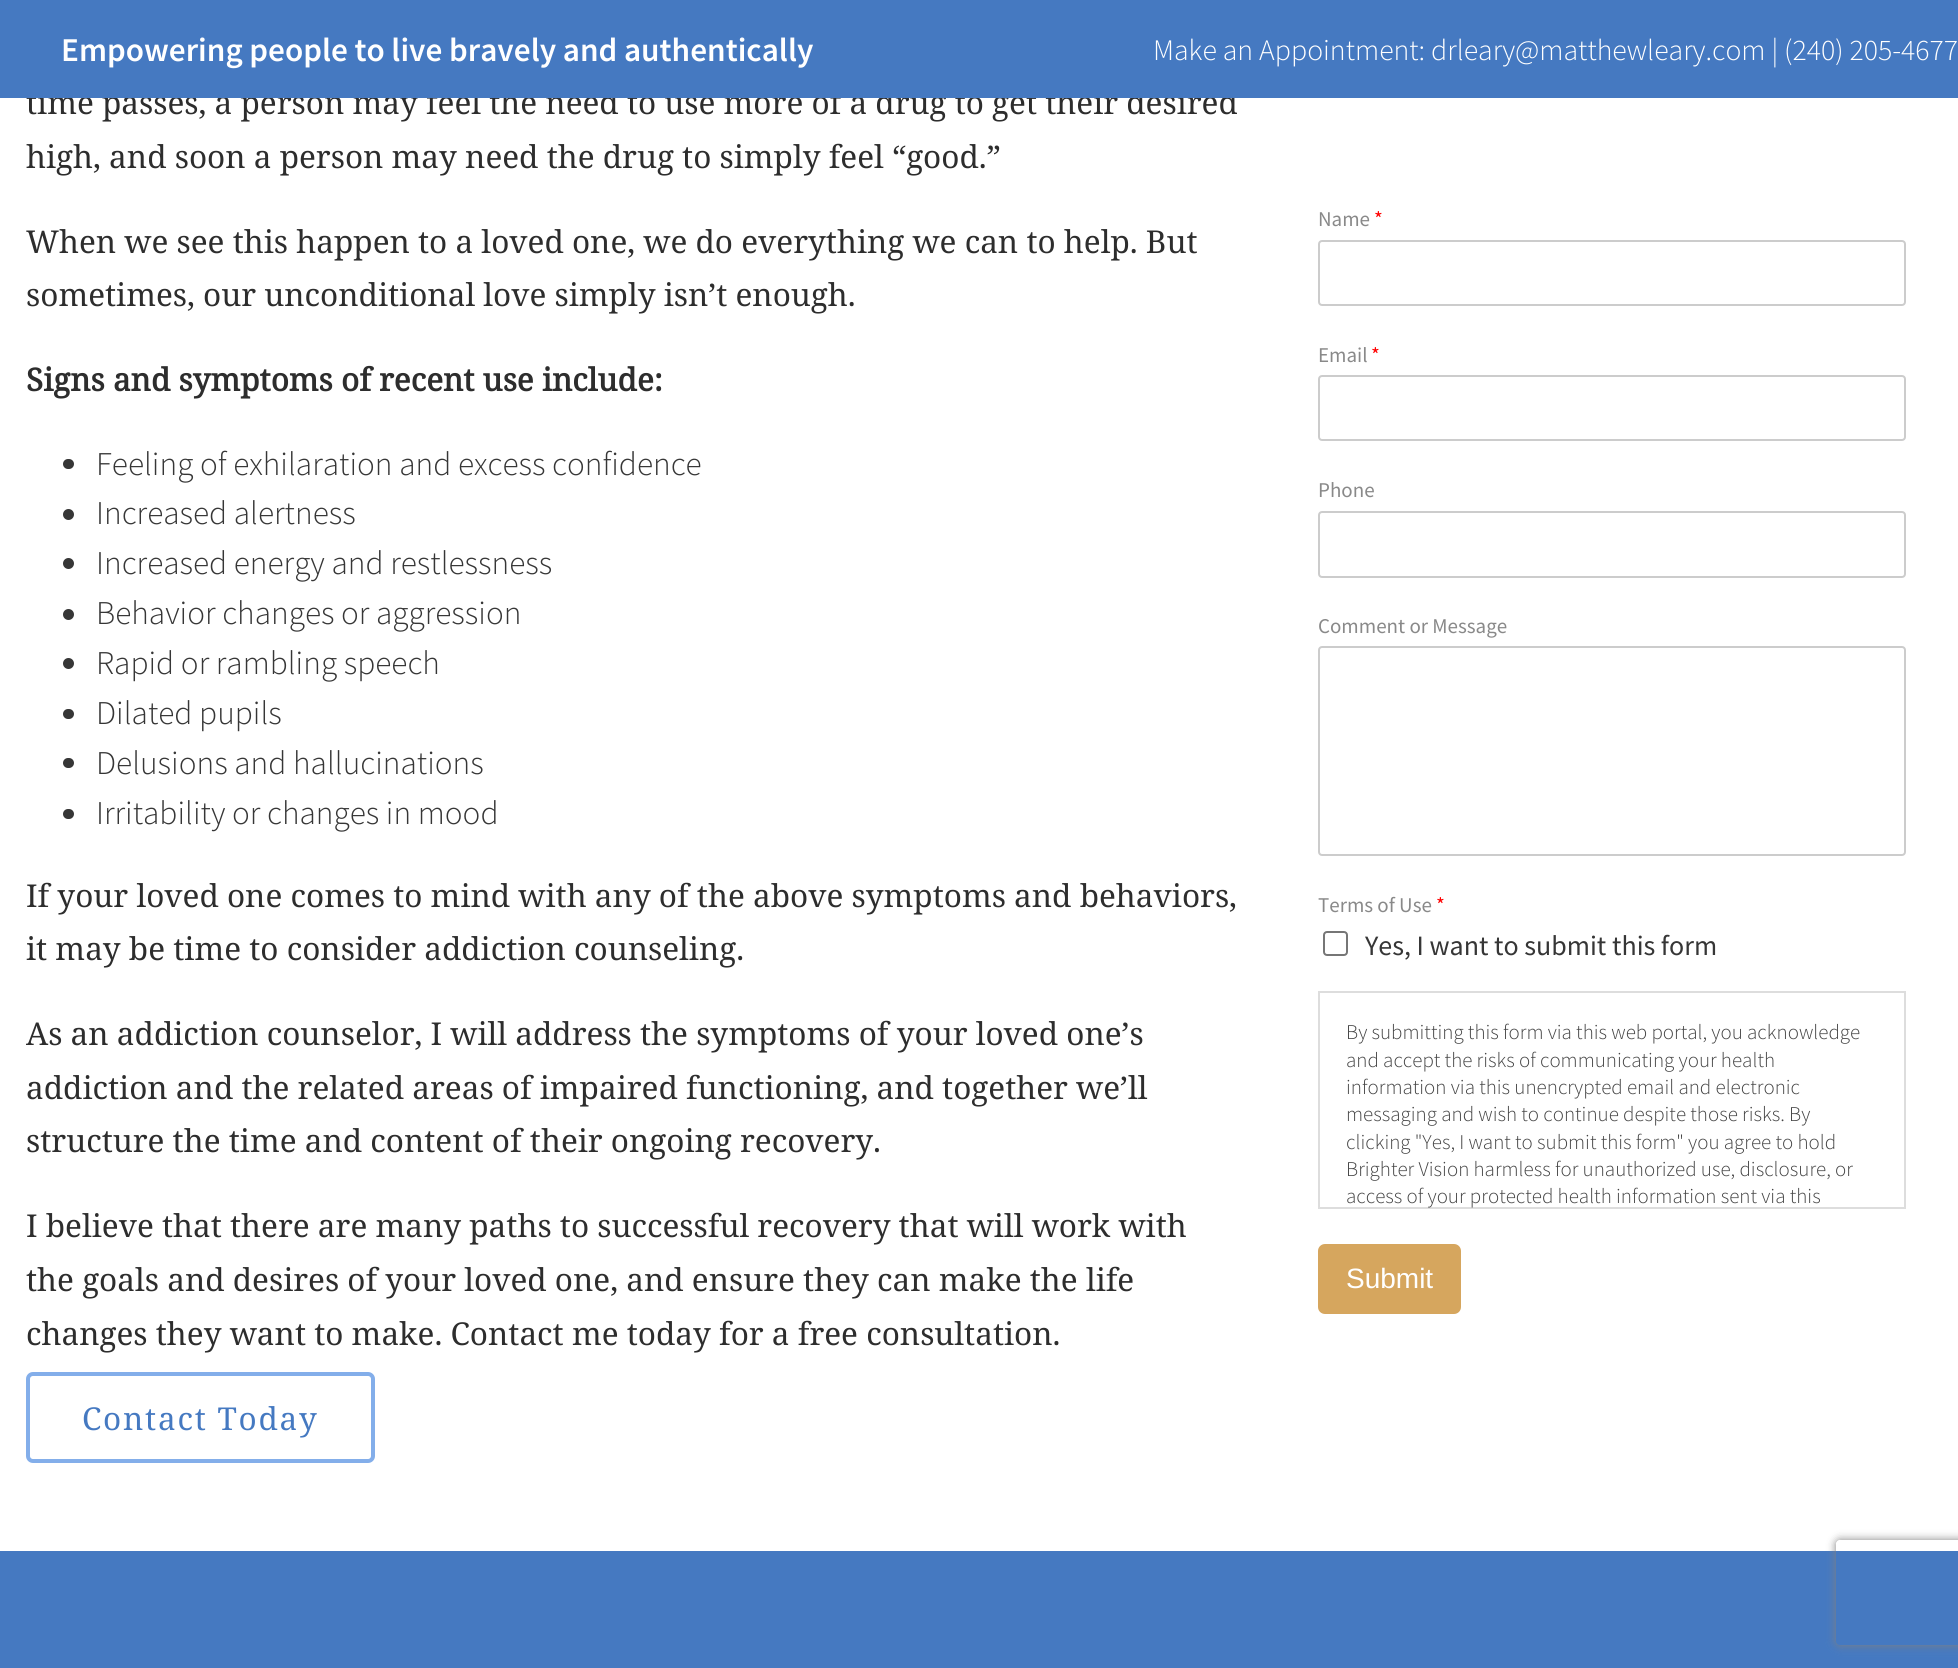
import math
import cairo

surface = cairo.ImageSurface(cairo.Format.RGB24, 1958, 1668)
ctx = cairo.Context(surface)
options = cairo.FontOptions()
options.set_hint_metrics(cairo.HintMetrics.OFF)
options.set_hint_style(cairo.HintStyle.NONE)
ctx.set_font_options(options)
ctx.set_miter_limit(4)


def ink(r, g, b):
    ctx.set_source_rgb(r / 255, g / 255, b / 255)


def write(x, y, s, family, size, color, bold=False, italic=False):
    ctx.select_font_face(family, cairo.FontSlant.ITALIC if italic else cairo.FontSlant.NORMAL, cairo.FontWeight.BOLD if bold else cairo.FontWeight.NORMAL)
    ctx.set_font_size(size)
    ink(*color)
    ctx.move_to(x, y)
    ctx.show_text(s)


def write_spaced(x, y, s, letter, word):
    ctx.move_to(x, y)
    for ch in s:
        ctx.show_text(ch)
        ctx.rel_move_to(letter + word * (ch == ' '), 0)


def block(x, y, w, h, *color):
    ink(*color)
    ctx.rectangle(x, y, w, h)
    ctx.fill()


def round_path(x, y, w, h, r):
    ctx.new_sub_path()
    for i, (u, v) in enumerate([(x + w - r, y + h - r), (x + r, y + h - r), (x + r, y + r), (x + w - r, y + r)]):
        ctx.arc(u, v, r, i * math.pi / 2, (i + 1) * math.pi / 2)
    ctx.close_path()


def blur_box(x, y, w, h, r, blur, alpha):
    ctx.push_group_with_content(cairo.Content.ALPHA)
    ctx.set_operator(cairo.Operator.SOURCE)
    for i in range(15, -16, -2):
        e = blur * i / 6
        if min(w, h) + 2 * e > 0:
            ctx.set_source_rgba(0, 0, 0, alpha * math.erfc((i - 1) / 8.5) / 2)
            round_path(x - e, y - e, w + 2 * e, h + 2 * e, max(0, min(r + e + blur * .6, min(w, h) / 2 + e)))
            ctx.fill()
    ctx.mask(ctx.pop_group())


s1 = dict(family="Noto Serif", size=31.5, color=(45, 45, 45))
s2 = dict(family="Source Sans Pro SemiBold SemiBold", size=33.25, color=(255, 255, 255))
s3 = dict(family="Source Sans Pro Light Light", size=29.75, color=(255, 255, 255))
s4 = dict(family="Noto Serif", size=31.5, color=(45, 45, 45), bold=True)
s5 = dict(family="Source Sans Pro Light Light", size=33.25, color=(54, 54, 54))
s6 = dict(family="Source Sans Pro", size=21, color=(137, 137, 137))
s7 = dict(family="Source Sans Pro", size=21, color=(255, 0, 0))
s8 = dict(family="Source Sans Pro", size=28, color=(54, 54, 54))
s9 = dict(family="Source Sans Pro Light Light", size=21, color=(68, 68, 68))
s10 = dict(family="Liberation Sans", size=28, color=(255, 255, 255))

ink(255, 255, 255)
ctx.paint()
write(26, 114, "time passes, a person may feel the need to use more of a drug to get their desired", **s1)
block(0, 0, 1958, 98, 69, 121, 193)
write(61, 61, "Empowering people to live bravely and authentically", **s2)
write(1153, 60, "Make an Appointment: drleary@matthewleary.com | (240) 205-4677", **s3)
write(26, 168, "high, and soon a person may need the drug to simply feel “good.”", **s1)
write(26, 253, "When we see this happen to a loved one, we do everything we can to help. But", **s1)
write(26, 306, "sometimes, our unconditional love simply isn’t enough.", **s1)
write(26, 391, "Signs and symptoms of recent use include:", **s4)
ink(54, 54, 54)
round_path(63, 459, 11, 10, 5)
ctx.fill()
write(96, 475, "Feeling of exhilaration and excess confidence", **s5)
ctx.new_path()
ctx.arc(68.5, 514.5, 5.5, 0, 2 * math.pi)
ctx.fill()
write(96, 524, "Increased alertness", **s5)
ctx.new_path()
ctx.arc(68.5, 563.5, 5.5, 0, 2 * math.pi)
ctx.fill()
write(96, 574, "Increased energy and restlessness", **s5)
ctx.new_path()
ctx.arc(68.5, 614.5, 5.5, 0, 2 * math.pi)
ctx.fill()
write(96, 624, "Behavior changes or aggression", **s5)
ctx.new_path()
ctx.arc(68.5, 663.5, 5.5, 0, 2 * math.pi)
ctx.fill()
write(96, 674, "Rapid or rambling speech", **s5)
round_path(63, 709, 11, 10, 5)
ctx.fill()
write(96, 724, "Dilated pupils", **s5)
round_path(63, 758, 11, 10, 5)
ctx.fill()
write(96, 774, "Delusions and hallucinations", **s5)
round_path(63, 809, 11, 10, 5)
ctx.fill()
write(96, 824, "Irritability or changes in mood", **s5)
write(26, 907, "If your loved one comes to mind with any of the above symptoms and behaviors,", **s1)
write(26, 960, "it may be time to consider addiction counseling.", **s1)
write(26, 1045, "As an addiction counselor, I will address the symptoms of your loved one’s", **s1)
write(26, 1099, "addiction and the related areas of impaired functioning, and together we’ll", **s1)
write(26, 1152, "structure the time and content of their ongoing recovery.", **s1)
write(26, 1237, "I believe that there are many paths to successful recovery that will work with", **s1)
write(26, 1291, "the goals and desires of your loved one, and ensure they can make the life", **s1)
write(26, 1345, "changes they want to make. Contact me today for a free consultation.", **s1)
round_path(28, 1374, 345, 87, 5)
ink(131, 174, 234)
ctx.set_line_width(4)
ctx.stroke()
ink(69, 121, 193)
write_spaced(82, 1430, "Contact Today", 1.75, 0)
write(1318, 226, "Name", **s6)
write(1374, 226, "*", **s7)
round_path(1319, 241, 586, 64, 3)
ink(204, 204, 204)
ctx.set_line_width(2)
ctx.stroke()
write(1318, 362, "Email", **s6)
write(1371, 362, "*", **s7)
round_path(1319, 376, 586, 64, 3)
ink(204, 204, 204)
ctx.stroke()
write(1318, 497, "Phone", **s6)
round_path(1319, 512, 586, 65, 3)
ink(204, 204, 204)
ctx.stroke()
write(1318, 633, "Comment or Message", **s6)
round_path(1319, 647, 586, 208, 3)
ink(204, 204, 204)
ctx.stroke()
write(1318, 912, "Terms of Use", **s6)
write(1436, 912, "*", **s7)
round_path(1324, 932, 23, 23, 3)
ink(118, 118, 118)
ctx.stroke()
write(1365, 955, "Yes, I want to submit this form", **s8)
ctx.rectangle(1319, 992, 586, 216)
ink(221, 221, 221)
ctx.stroke()
write(1346, 1039, "By submitting this form via this web portal, you acknowledge", **s9)
write(1346, 1067, "and accept the risks of communicating your health", **s9)
write(1346, 1094, "information via this unencrypted email and electronic", **s9)
write(1346, 1121, "messaging and wish to continue despite those risks. By", **s9)
write(1346, 1149, "clicking \"Yes, I want to submit this form\" you agree to hold", **s9)
write(1346, 1176, "Brighter Vision harmless for unauthorized use, disclosure, or", **s9)
write(1346, 1203, "access of your protected health information sent via this", **s9)
ink(214, 166, 94)
round_path(1319, 1245, 141, 68, 6)
ctx.fill_preserve()
ctx.stroke()
write(1346, 1288, "Submit", **s10)
block(0, 1551, 1958, 117, 69, 121, 193)
ctx.save()
ctx.set_fill_rule(cairo.FillRule.EVEN_ODD)
ctx.new_path()
ctx.move_to(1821, 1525)
ctx.line_to(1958, 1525)
ctx.line_to(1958, 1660)
ctx.line_to(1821, 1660)
ctx.close_path()
ctx.move_to(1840, 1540)
ctx.line_to(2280, 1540)
ctx.curve_to(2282, 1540, 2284, 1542, 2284, 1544)
ctx.line_to(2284, 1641)
ctx.curve_to(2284, 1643, 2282, 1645, 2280, 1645)
ctx.line_to(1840, 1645)
ctx.curve_to(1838, 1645, 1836, 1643, 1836, 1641)
ctx.line_to(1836, 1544)
ctx.curve_to(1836, 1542, 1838, 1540, 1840, 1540)
ctx.close_path()
ctx.clip()
ink(128, 128, 128)
blur_box(1836, 1540, 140, 105, 4, 4.5, 1)
ctx.restore()
surface.write_to_png("screenshot.png")
